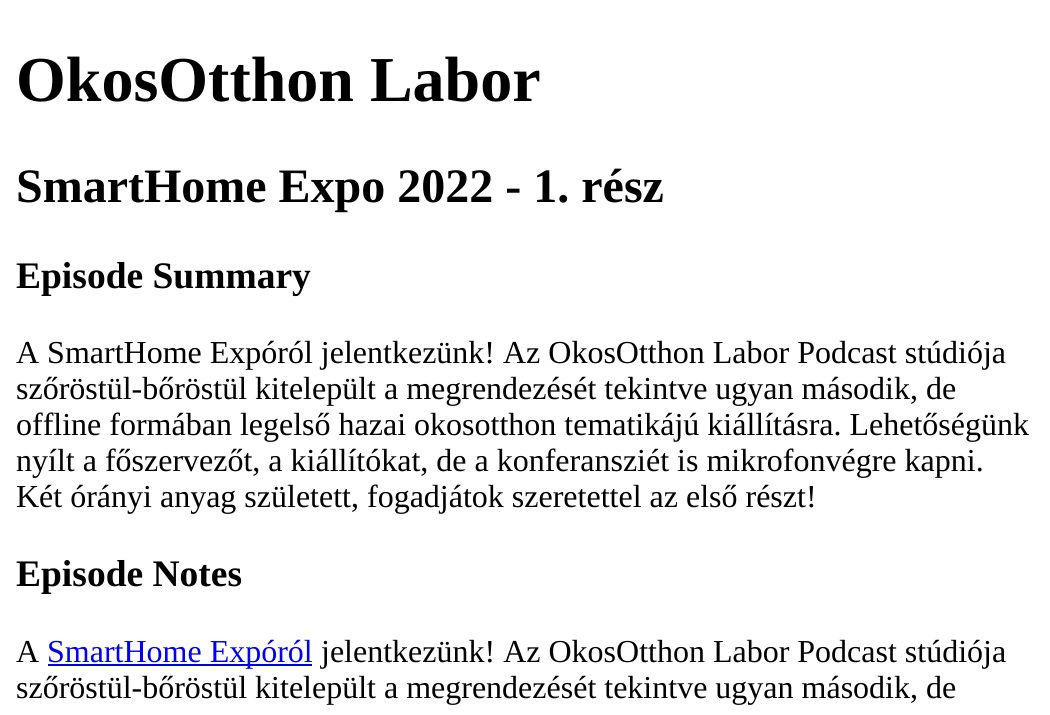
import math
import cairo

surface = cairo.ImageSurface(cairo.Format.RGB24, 1050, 715)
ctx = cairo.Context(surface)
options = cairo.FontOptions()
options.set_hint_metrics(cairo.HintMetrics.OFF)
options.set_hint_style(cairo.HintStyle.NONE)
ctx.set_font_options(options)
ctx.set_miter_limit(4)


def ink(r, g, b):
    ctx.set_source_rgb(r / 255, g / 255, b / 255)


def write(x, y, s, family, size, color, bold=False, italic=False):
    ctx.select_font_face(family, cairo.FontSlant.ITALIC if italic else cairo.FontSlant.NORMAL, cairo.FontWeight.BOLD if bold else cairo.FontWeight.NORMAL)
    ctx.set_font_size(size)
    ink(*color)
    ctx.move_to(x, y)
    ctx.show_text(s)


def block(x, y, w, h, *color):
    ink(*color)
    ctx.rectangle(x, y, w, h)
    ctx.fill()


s1 = dict(family="Liberation Serif", size=64, color=(0, 0, 0), bold=True)
s2 = dict(family="Liberation Serif", size=48, color=(0, 0, 0), bold=True)
s3 = dict(family="Liberation Serif", size=37.5, color=(0, 0, 0), bold=True)
s4 = dict(family="Liberation Serif", size=32, color=(0, 0, 0))
s5 = dict(family="Liberation Serif", size=32, color=(0, 0, 238))

ink(255, 255, 255)
ctx.paint()
write(16, 101, "OkosOtthon Labor", **s1)
write(16, 202, "SmartHome Expo 2022 - 1. rész", **s2)
write(16, 288, "Episode Summary", **s3)
write(16, 363, "A SmartHome Expóról jelentkezünk! Az OkosOtthon Labor Podcast stúdiója", **s4)
write(16, 399, "szőröstül-bőröstül kitelepült a megrendezését tekintve ugyan második, de", **s4)
write(16, 435, "offline formában legelső hazai okosotthon tematikájú kiállításra. Lehetőségünk", **s4)
write(16, 471, "nyílt a főszervezőt, a kiállítókat, de a konferansziét is mikrofonvégre kapni.", **s4)
write(16, 507, "Két órányi anyag született, fogadjátok szeretettel az első részt!", **s4)
write(16, 586, "Episode Notes", **s3)
write(16, 662, "A", **s4)
block(48, 664, 264, 2, 0, 0, 238)
write(47, 662, "SmartHome Expóról", **s5)
write(321, 662, "jelentkezünk! Az OkosOtthon Labor Podcast stúdiója", **s4)
write(16, 698, "szőröstül-bőröstül kitelepült a megrendezését tekintve ugyan második, de", **s4)
surface.write_to_png("screenshot.png")
